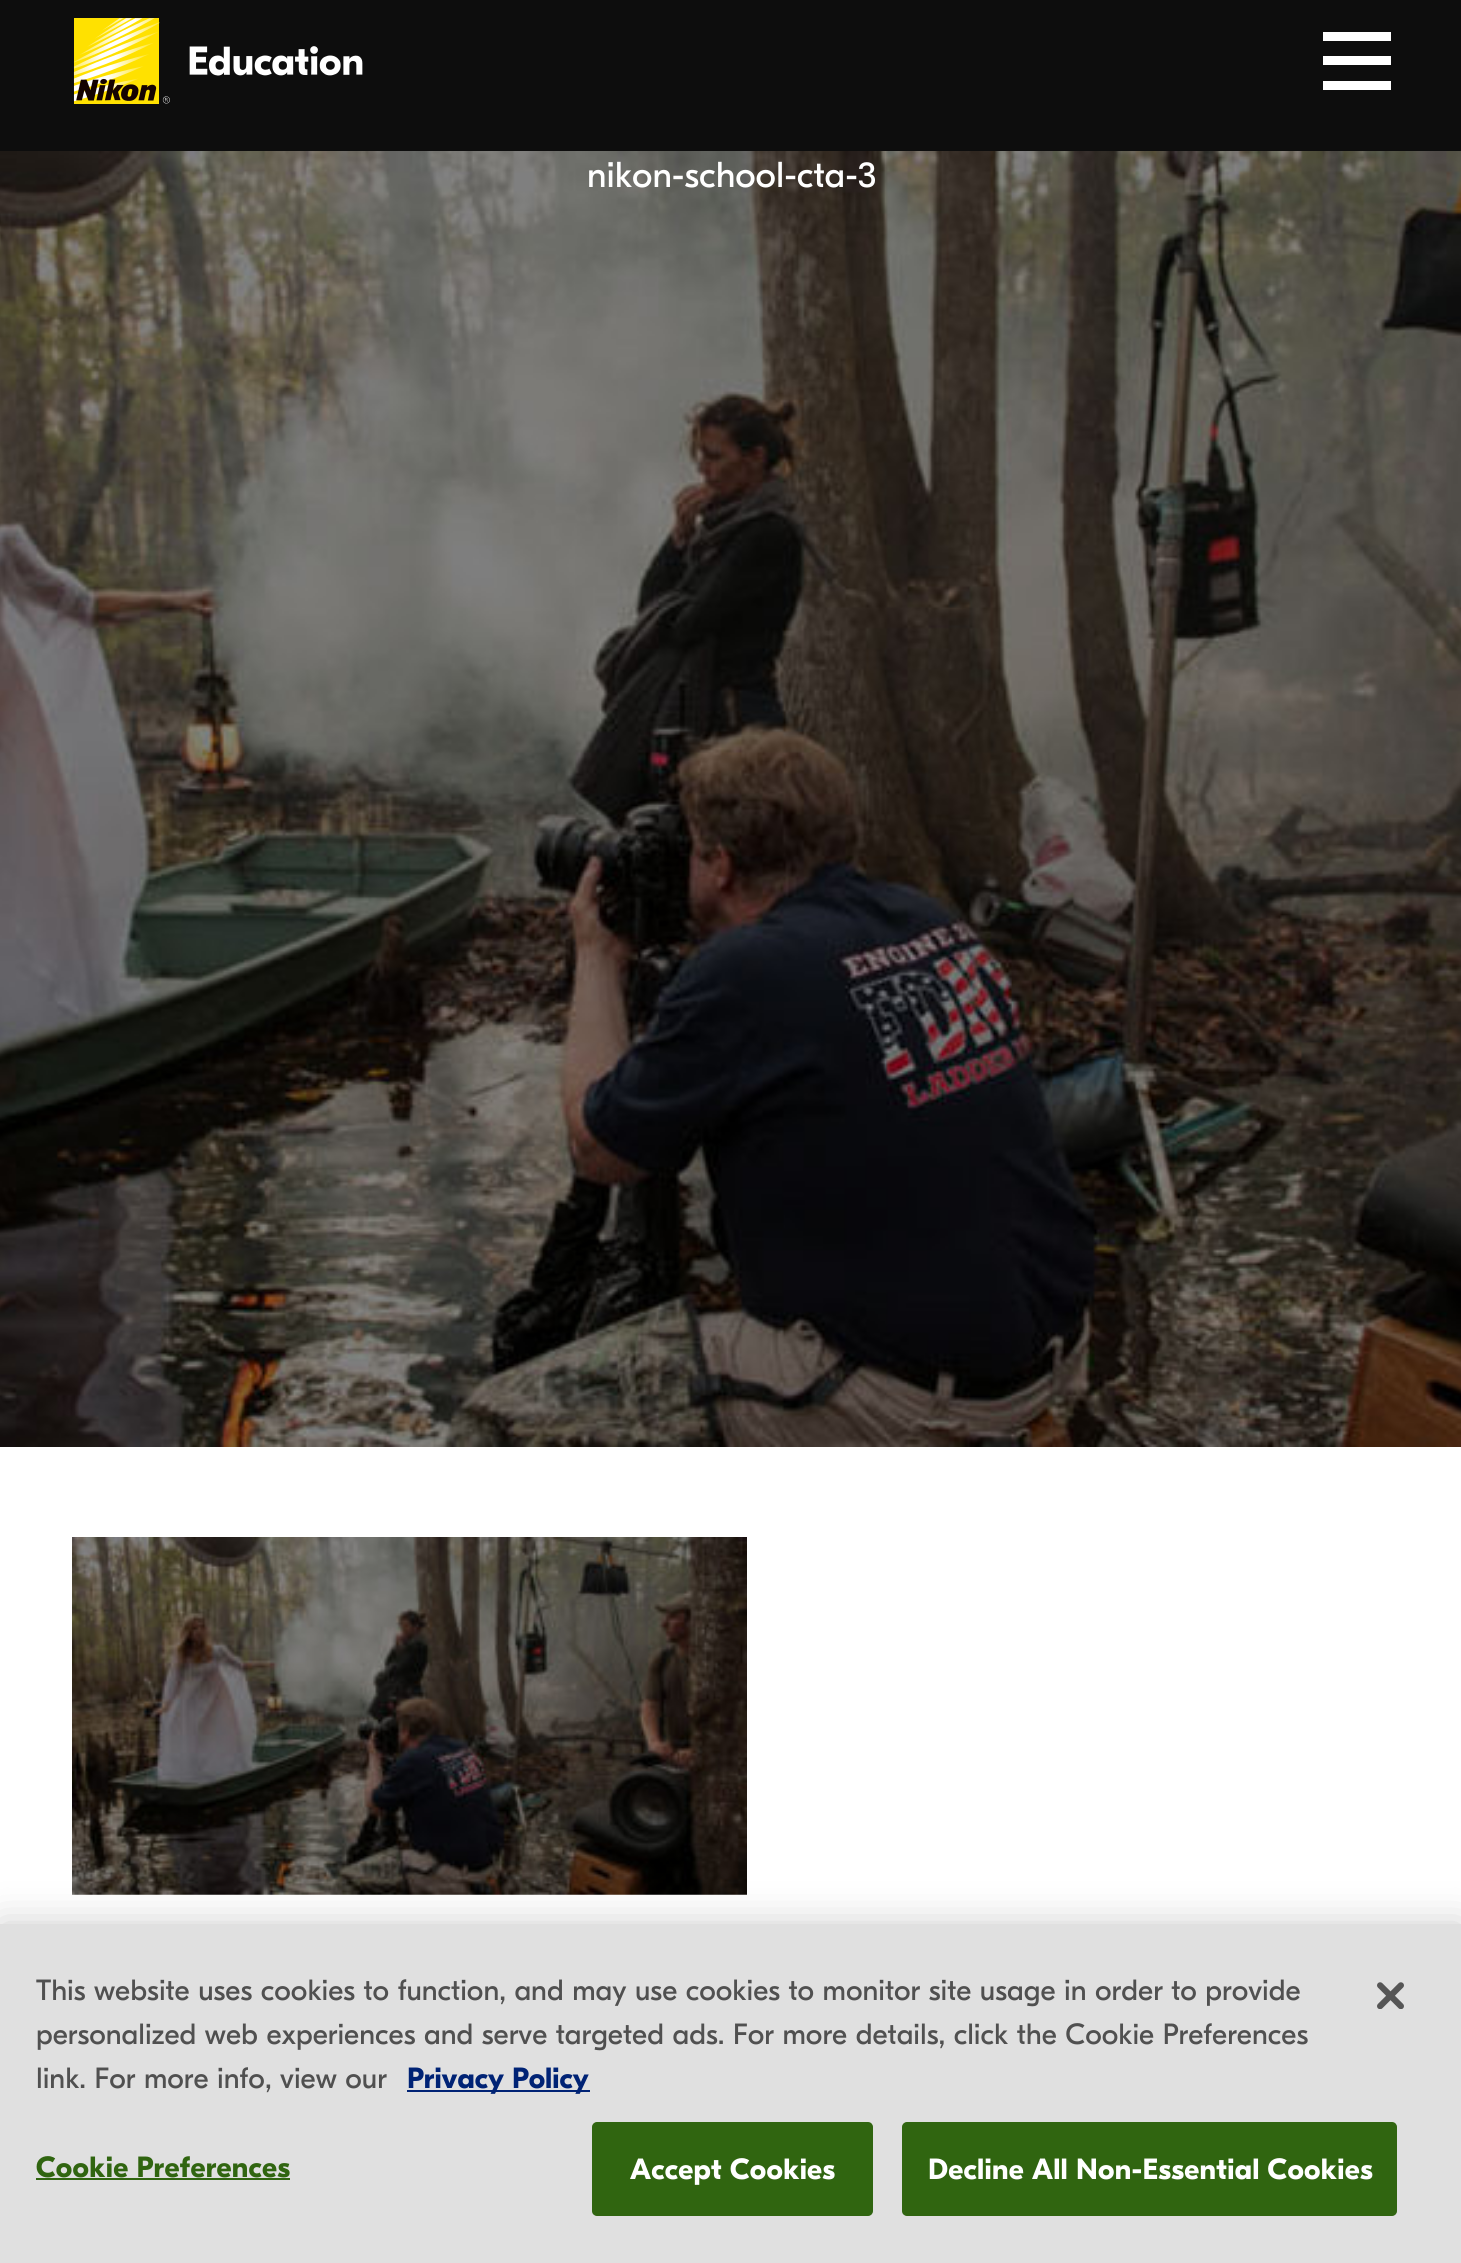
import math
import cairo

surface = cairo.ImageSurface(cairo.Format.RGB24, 1461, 2263)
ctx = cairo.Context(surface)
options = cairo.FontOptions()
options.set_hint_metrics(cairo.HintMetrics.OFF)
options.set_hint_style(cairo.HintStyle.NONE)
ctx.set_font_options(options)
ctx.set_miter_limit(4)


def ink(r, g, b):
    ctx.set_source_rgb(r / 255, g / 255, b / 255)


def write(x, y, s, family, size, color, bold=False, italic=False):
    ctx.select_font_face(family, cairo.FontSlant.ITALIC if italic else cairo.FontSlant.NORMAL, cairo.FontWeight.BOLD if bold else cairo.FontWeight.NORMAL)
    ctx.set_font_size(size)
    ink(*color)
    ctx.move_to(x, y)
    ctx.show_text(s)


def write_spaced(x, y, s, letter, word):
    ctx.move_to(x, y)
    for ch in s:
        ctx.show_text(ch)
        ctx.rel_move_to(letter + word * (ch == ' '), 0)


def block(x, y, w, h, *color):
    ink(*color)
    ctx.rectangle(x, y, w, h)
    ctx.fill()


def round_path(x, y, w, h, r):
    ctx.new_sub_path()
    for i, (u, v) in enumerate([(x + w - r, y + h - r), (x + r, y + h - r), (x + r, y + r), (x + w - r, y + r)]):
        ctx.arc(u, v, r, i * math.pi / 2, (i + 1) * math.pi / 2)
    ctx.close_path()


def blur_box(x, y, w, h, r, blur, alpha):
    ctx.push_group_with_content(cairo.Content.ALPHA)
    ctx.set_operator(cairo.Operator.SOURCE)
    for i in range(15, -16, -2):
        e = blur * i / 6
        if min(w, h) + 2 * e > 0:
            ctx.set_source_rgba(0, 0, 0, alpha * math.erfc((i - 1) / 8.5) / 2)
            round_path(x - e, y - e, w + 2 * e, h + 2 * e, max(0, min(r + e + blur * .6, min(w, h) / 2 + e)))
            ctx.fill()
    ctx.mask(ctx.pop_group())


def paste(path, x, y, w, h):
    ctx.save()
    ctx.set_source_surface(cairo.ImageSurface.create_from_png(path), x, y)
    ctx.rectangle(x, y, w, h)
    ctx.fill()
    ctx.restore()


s1 = dict(family="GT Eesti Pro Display", size=36, color=(255, 255, 255))
s2 = dict(family="GT Eesti Pro Display", size=29.25, color=(80, 80, 80))
s3 = dict(family="GT Eesti Pro Display", size=29.25, color=(0, 35, 117), bold=True)

ink(255, 255, 255)
ctx.paint()
block(0, 0, 1461, 151, 13, 13, 13)
paste("pic1.png", 73, 18, 290, 86)
block(1323, 32, 68, 9, 255, 255, 255)
block(1323, 56, 68, 9, 255, 255, 255)
block(1323, 81, 68, 9, 255, 255, 255)
paste("pic2.png", 0, 151, 1461, 1296)
write(587, 187, "nikon-school-cta-3", **s1)
paste("pic3.png", 72, 1537, 675, 358)
ink(0, 0, 0)
blur_box(0, 1924, 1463, 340, 0, 20, 0.2)
block(0, 1924, 1461, 339, 224, 224, 224)
write(36, 2000, "This website uses cookies to function, and may use cookies to monitor site usage in order to provide", **s2)
write(36, 2044, "personalized web experiences and serve targeted ads.", **s2)
write(733, 2044, "For more details, click the Cookie Preferences", **s2)
write(36, 2088, "link. For more info, view our", **s2)
block(407, 2090, 183, 2, 0, 35, 117)
write(407, 2088, "Privacy Policy", **s3)
ink(48, 101, 16)
write_spaced(36, 2177, "Cookie Preferences", 0.3, 0)
block(36, 2178, 254, 2, 48, 101, 16)
round_path(593, 2123, 279, 92, 4)
ctx.fill_preserve()
ctx.stroke()
ink(255, 255, 255)
write_spaced(630, 2179, "Accept Cookies", 0.3, 0)
ink(48, 101, 16)
round_path(903, 2123, 493, 92, 4)
ctx.fill_preserve()
ctx.stroke()
ink(255, 255, 255)
write_spaced(928, 2179, "Decline All Non-Essential Cookies", 0.3, 0)
paste("pic4.png", 1377, 1982, 27, 27)
surface.write_to_png("screenshot.png")
